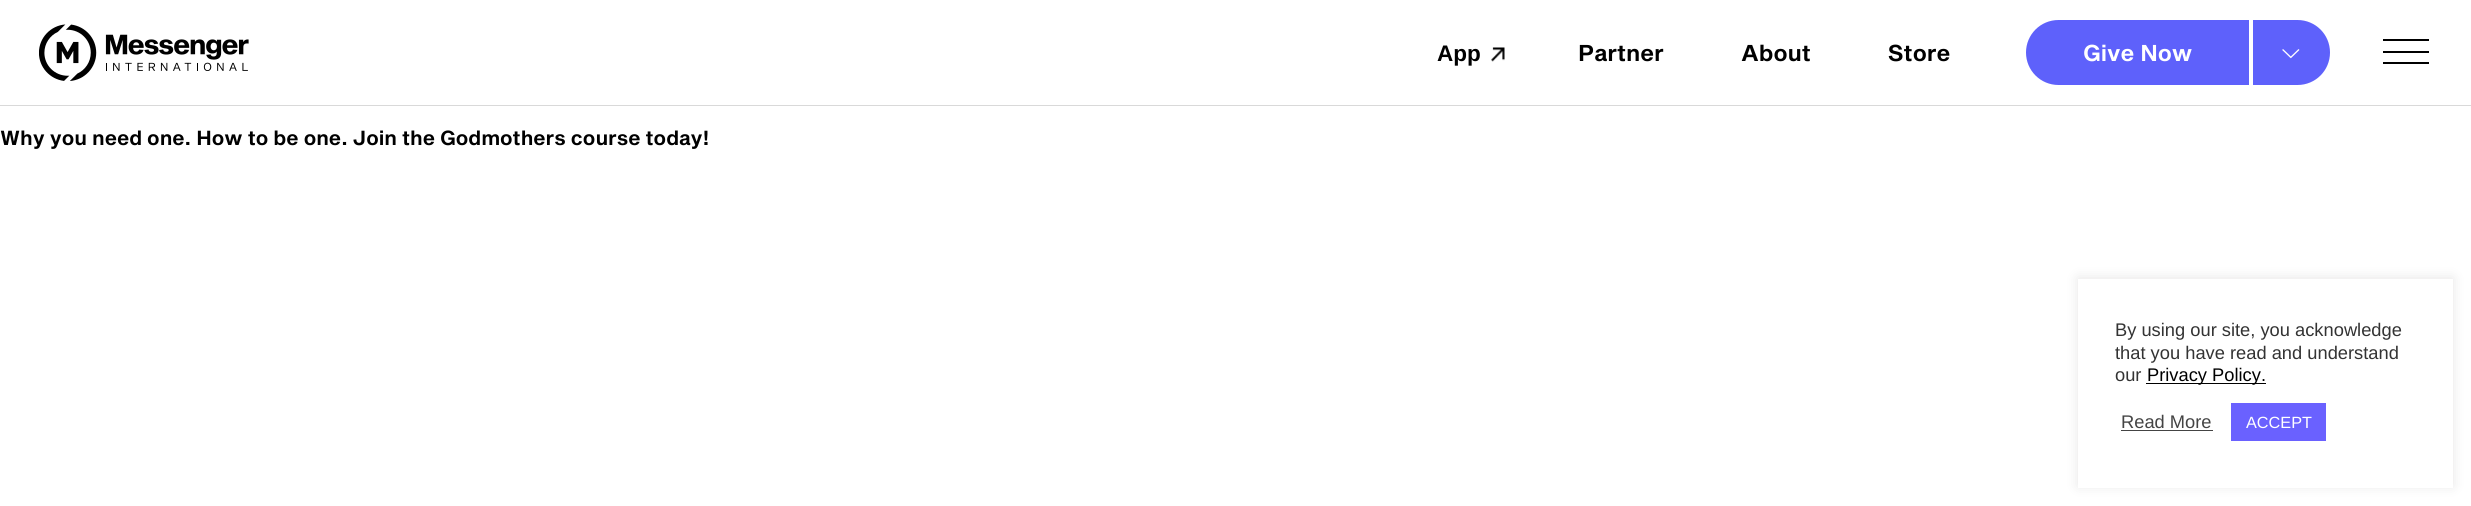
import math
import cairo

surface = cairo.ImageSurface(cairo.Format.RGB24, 2471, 506)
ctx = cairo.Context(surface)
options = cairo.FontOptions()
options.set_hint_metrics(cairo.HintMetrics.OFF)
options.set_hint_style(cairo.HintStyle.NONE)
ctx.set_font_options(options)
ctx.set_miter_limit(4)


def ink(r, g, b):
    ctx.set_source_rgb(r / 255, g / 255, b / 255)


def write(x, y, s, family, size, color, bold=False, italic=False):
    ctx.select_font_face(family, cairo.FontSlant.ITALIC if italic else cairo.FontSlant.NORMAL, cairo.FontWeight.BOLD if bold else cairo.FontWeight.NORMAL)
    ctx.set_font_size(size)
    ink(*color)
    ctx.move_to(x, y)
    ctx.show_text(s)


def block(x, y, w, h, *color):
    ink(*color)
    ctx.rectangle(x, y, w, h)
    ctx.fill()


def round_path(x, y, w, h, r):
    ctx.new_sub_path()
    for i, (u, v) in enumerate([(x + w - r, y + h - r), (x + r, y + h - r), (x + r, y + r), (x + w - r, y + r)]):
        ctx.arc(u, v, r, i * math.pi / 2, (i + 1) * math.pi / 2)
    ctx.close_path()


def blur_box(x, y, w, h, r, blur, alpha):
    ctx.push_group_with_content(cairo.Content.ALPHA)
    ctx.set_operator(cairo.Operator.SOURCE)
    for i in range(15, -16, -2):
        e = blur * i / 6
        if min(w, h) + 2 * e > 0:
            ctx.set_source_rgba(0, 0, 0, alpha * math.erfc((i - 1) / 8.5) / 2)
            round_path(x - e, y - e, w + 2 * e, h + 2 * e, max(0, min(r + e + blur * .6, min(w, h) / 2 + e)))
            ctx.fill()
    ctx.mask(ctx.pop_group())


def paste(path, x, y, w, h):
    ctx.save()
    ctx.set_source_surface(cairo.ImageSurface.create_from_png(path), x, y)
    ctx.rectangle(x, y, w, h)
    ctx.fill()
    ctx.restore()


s1 = dict(family="Liberation Sans", size=22.5, color=(0, 0, 0), bold=True)
s2 = dict(family="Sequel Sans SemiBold", size=22.5, color=(0, 0, 0))
s3 = dict(family="Sequel Sans SemiBold", size=22.5, color=(255, 255, 255))
s4 = dict(family="Sequel Sans SemiBold", size=20, color=(0, 0, 0))
s5 = dict(family="Liberation Sans", size=18.3, color=(51, 51, 51))
s6 = dict(family="Liberation Sans", size=18.3, color=(0, 0, 0))
s7 = dict(family="Liberation Sans", size=18.3, color=(68, 68, 68))
s8 = dict(family="Liberation Sans", size=16.25, color=(255, 255, 255))

ink(255, 255, 255)
ctx.paint()
block(0, 105, 2471, 1, 217, 217, 217)
paste("pic1.png", 39, 24, 210, 57)
write(1437, 61, "App", **s1)
paste("pic2.png", 1491, 47, 14, 15)
write(1578, 61, "Partner", **s2)
write(1741, 61, "About", **s2)
write(1888, 61, "Store", **s2)
ink(94, 97, 251)
ctx.new_path()
ctx.move_to(2058.5, 20)
ctx.line_to(2249, 20)
ctx.line_to(2249, 85)
ctx.line_to(2058.5, 85)
ctx.curve_to(2040.5, 85, 2026, 70.5, 2026, 52.5)
ctx.curve_to(2026, 34.5, 2040.5, 20, 2058.5, 20)
ctx.close_path()
ctx.fill()
write(2083, 61, "Give Now", **s3)
ink(94, 97, 251)
ctx.new_path()
ctx.move_to(2253, 20)
ctx.line_to(2297.5, 20)
ctx.curve_to(2315.5, 20, 2330, 34.5, 2330, 52.5)
ctx.curve_to(2330, 70.5, 2315.5, 85, 2297.5, 85)
ctx.line_to(2253, 85)
ctx.close_path()
ctx.fill()
paste("pic3.png", 2282, 49, 18, 10)
block(2383, 39, 46, 2, 0, 0, 0)
block(2383, 51, 46, 2, 0, 0, 0)
block(2383, 62, 46, 2, 0, 0, 0)
write(0, 145, "Why you need one. How to be one. Join the Godmothers course today!", **s4)
ink(172, 171, 171)
blur_box(2078, 278, 375, 208, 0, 6, 0.3)
block(2078, 279, 375, 209, 255, 255, 255)
write(2115, 336, "By using our site, you acknowledge", **s5)
write(2115, 359, "that you have read and understand", **s5)
write(2115, 381, "our", **s5)
block(2146, 383, 120, 1, 0, 0, 0)
write(2147, 381, "Privacy Policy.", **s6)
write(2121, 428, "Read More", **s7)
block(2121, 430, 92, 1, 68, 68, 68)
block(2231, 403, 95, 38, 106, 97, 255)
write(2246, 428, "ACCEPT", **s8)
surface.write_to_png("screenshot.png")
